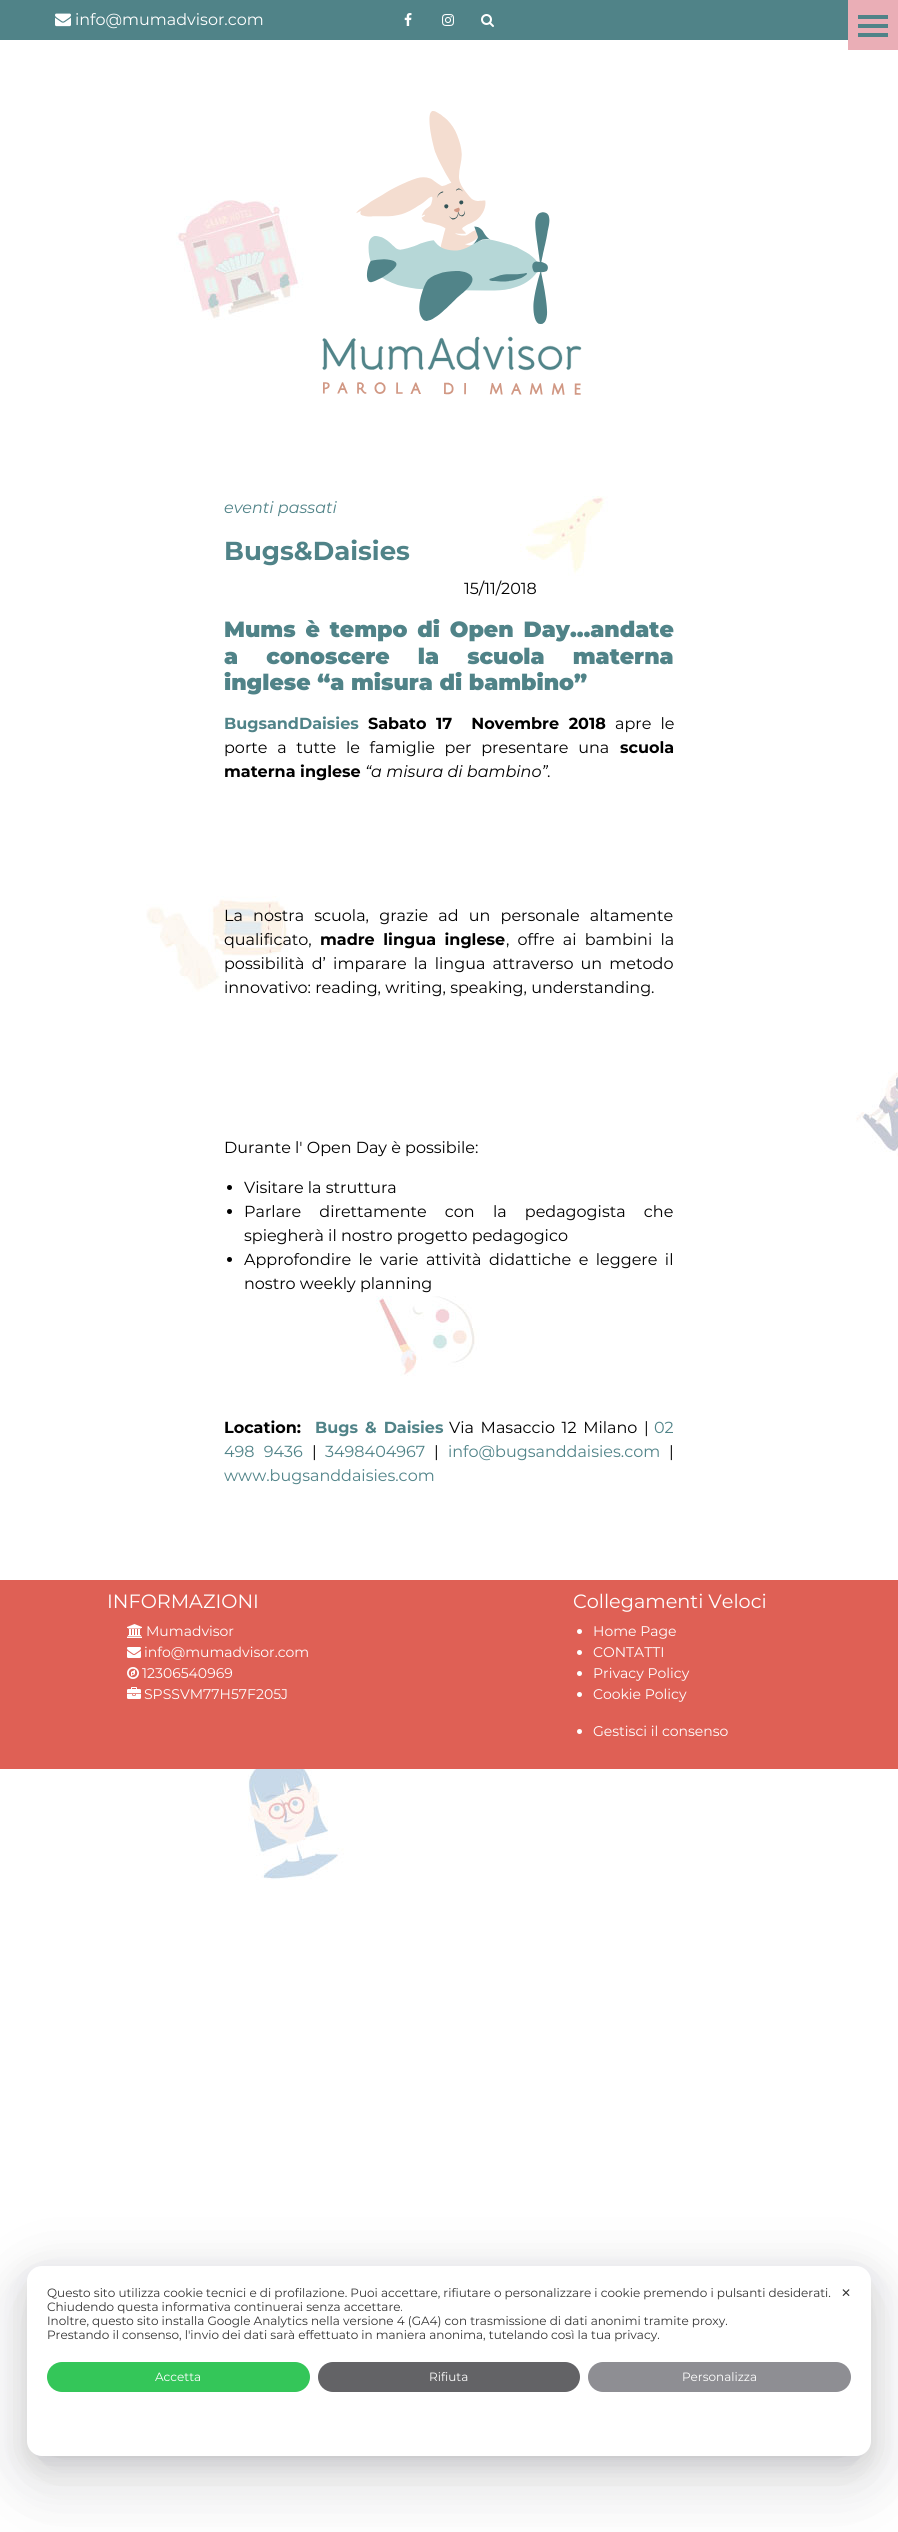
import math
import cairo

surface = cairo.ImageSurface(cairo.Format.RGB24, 898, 2532)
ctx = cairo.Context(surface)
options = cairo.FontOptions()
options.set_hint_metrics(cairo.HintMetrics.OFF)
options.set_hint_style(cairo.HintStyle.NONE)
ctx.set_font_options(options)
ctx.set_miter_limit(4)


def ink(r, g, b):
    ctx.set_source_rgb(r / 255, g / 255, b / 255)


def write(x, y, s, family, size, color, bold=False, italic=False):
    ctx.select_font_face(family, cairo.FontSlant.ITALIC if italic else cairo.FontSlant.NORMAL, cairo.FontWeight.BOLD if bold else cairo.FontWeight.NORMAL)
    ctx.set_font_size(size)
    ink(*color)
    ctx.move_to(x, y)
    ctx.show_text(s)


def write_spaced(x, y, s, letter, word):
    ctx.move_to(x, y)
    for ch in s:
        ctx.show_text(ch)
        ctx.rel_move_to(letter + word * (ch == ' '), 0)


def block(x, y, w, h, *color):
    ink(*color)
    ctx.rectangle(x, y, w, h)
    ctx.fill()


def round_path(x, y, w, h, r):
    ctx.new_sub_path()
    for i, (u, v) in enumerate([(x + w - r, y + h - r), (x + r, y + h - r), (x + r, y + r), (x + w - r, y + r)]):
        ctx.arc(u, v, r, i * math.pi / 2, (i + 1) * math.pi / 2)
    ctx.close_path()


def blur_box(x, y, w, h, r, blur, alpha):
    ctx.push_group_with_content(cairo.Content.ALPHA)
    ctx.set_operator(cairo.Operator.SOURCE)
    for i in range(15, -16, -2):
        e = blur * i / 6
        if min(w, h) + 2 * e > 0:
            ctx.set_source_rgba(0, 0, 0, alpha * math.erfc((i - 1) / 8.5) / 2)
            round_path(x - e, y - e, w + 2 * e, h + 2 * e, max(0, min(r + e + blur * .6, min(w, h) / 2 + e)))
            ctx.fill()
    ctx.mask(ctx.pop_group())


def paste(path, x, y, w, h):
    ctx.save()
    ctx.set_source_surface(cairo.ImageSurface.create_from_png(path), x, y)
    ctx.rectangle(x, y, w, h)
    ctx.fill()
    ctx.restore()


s1 = dict(family="Montserrat", size=16, color=(255, 255, 255))
s2 = dict(family="Montserrat", size=16, color=(80, 131, 136), italic=True)
s3 = dict(family="Montserrat", size=26, color=(80, 131, 136), bold=True)
s4 = dict(family="Montserrat", size=16, color=(0, 0, 0))
s5 = dict(family="Montserrat Black", size=22, color=(80, 131, 136))
s6 = dict(family="Montserrat", size=16, color=(80, 131, 136), bold=True)
s7 = dict(family="Montserrat", size=16, color=(0, 0, 0), bold=True)
s8 = dict(family="Montserrat", size=16, color=(0, 0, 0), italic=True)
s9 = dict(family="Montserrat", size=16, color=(80, 131, 136))
s10 = dict(family="Montserrat", size=19.25, color=(255, 255, 255))
s11 = dict(family="Montserrat", size=14, color=(255, 255, 255))
s12 = dict(family="Montserrat", size=12, color=(51, 51, 51))
s13 = dict(family="Montserrat", size=12, color=(255, 255, 255))
s14 = dict(family="DejaVu Sans", size=12, color=(51, 51, 51))

ink(255, 255, 255)
ctx.paint()
paste("pic1.png", 146, 200, 752, 2249)
block(0, 0, 848, 40, 80, 131, 136)
paste("pic2.png", 55, 13, 16, 14)
write(75, 25, "info@mumadvisor.com", **s1)
paste("pic3.png", 404, 13, 8, 13)
paste("pic4.png", 442, 14, 12, 12)
paste("pic5.png", 481, 14, 13, 13)
block(848, 0, 50, 50, 234, 174, 182)
block(858, 15, 30, 4, 80, 131, 136)
block(858, 24, 30, 4, 80, 131, 136)
block(858, 33, 30, 4, 80, 131, 136)
paste("pic6.png", 322, 111, 260, 284)
write(224, 513, "eventi passati", **s2)
write(224, 560, "Bugs&Daisies", **s3)
write(464, 594, "15/11/2018", **s4)
ctx.select_font_face("Montserrat Black")
ctx.set_font_size(22)
ink(80, 131, 136)
write_spaced(224, 637, "Mums è tempo di Open Day…andate", 0, 3.25)
write_spaced(224, 664, "a conoscere la scuola materna", 0, 21.5)
write(224, 690, "inglese “a misura di bambino”", **s5)
write(224, 729, "BugsandDaisies", **s6)
ink(0, 0, 0)
write_spaced(368, 729, "Sabato 17  Novembre 2018", 0, 5)
ctx.select_font_face("Montserrat")
write_spaced(615, 729, "apre le", 0, 5)
write_spaced(224, 753, "porte a tutte le famiglie per presentare una", 0, 5.5)
write(620, 753, "scuola", **s7)
write(224, 777, "materna inglese", **s7)
write(365, 777, "“a misura di bambino”", **s8)
write(547, 777, ".", **s4)
write_spaced(224, 921, "La nostra scuola, grazie ad un personale altamente", 0, 6)
write(224, 945, "qualificato,", **s4)
ctx.select_font_face("Montserrat", cairo.FontSlant.NORMAL, cairo.FontWeight.BOLD)
write_spaced(320, 945, "madre lingua inglese", 0, 4)
ctx.select_font_face("Montserrat")
write_spaced(506, 945, ", offre ai bambini la", 0, 4)
write_spaced(224, 969, "possibilità d’ imparare la lingua attraverso un metodo", 0, 3)
write(224, 993, "innovativo: reading, writing, speaking, understanding.", **s4)
write(224, 1153, "Durante l' Open Day è possibile:", **s4)
ctx.new_path()
ctx.arc(229.5, 1187.5, 2.5, 0, 2 * math.pi)
ctx.fill()
write(244, 1193, "Visitare la struttura", **s4)
ctx.new_path()
ctx.arc(229.5, 1211.5, 2.5, 0, 2 * math.pi)
ctx.fill()
write_spaced(244, 1217, "Parlare direttamente con la pedagogista che", 0, 14)
write(244, 1241, "spiegherà il nostro progetto pedagogico", **s4)
ctx.new_path()
ctx.arc(229.5, 1259.5, 2.5, 0, 2 * math.pi)
ctx.fill()
write_spaced(244, 1265, "Approfondire le varie attività didattiche e leggere il", 0, 3.25)
write(244, 1289, "nostro weekly planning", **s4)
write(224, 1433, "Location:", **s7)
ink(80, 131, 136)
write_spaced(315, 1433, "Bugs & Daisies", 0, 2.5)
ctx.select_font_face("Montserrat")
ink(0, 0, 0)
write_spaced(449, 1433, "Via Masaccio 12 Milano |", 0, 2.5)
write(654, 1433, "02", **s9)
write_spaced(224, 1457, "498 9436", 0, 5)
write(312, 1457, "|", **s4)
write(325, 1457, "3498404967", **s9)
write(434, 1457, "|", **s4)
write(448, 1457, "info@bugsanddaisies.com", **s9)
write(669, 1457, "|", **s4)
write(224, 1481, "www.bugsanddaisies.com", **s9)
block(0, 1580, 898, 189, 223, 96, 85)
write(107, 1608, "INFORMAZIONI", **s10)
paste("pic7.png", 127, 1624, 15, 14)
write(146, 1636, "Mumadvisor", **s11)
paste("pic8.png", 127, 1647, 14, 11)
write(144, 1657, "info@mumadvisor.com", **s11)
paste("pic9.png", 127, 1667, 12, 12)
write(142, 1678, "12306540969", **s11)
paste("pic10.png", 127, 1687, 14, 12)
write(144, 1699, "SPSSVM77H57F205J", **s11)
write(573, 1608, "Collegamenti Veloci", **s10)
ctx.new_path()
ctx.arc(579.5, 1631.5, 2.5, 0, 2 * math.pi)
ctx.fill()
write(593, 1636, "Home Page", **s11)
ctx.new_path()
ctx.arc(579.5, 1652.5, 2.5, 0, 2 * math.pi)
ctx.fill()
write(593, 1657, "CONTATTI", **s11)
ctx.new_path()
ctx.arc(579.5, 1673.5, 2.5, 0, 2 * math.pi)
ctx.fill()
write(593, 1678, "Privacy Policy", **s11)
ctx.new_path()
ctx.arc(579.5, 1694.5, 2.5, 0, 2 * math.pi)
ctx.fill()
write(593, 1699, "Cookie Policy", **s11)
ctx.new_path()
ctx.arc(579.5, 1731.5, 2.5, 0, 2 * math.pi)
ctx.fill()
write(593, 1736, "Gestisci il consenso", **s11)
ink(17, 17, 26)
blur_box(27, 2290, 844, 190, 15, 40, 0.1)
blur_box(27, 2282, 844, 190, 15, 28, 0.1)
blur_box(27, 2274, 844, 190, 15, 12, 0.1)
ink(255, 255, 255)
round_path(27, 2266, 844, 190, 15)
ctx.fill()
write(47, 2297, "Questo sito utilizza cookie tecnici e di profilazione. Puoi accettare, rifiutare o personalizzare i cookie premendo i pulsanti desiderati.", **s12)
write(47, 2311, "Chiudendo questa informativa continuerai senza accettare.", **s12)
write(47, 2325, "Inoltre, questo sito installa Google Analytics nella versione 4 (GA4) con trasmissione di dati anonimi tramite proxy.", **s12)
write(47, 2339, "Prestando il consenso, l'invio dei dati sarà effettuato in maniera anonima, tutelando così la tua privacy.", **s12)
ink(52, 198, 89)
round_path(47, 2362, 263, 30, 15)
ctx.fill()
write(155, 2381, "Accetta", **s13)
ink(99, 99, 102)
round_path(318, 2362, 262, 30, 15)
ctx.fill()
write(429, 2381, "Rifiuta", **s13)
ink(142, 142, 147)
round_path(588, 2362, 263, 30, 15)
ctx.fill()
write(682, 2381, "Personalizza", **s13)
write(841, 2297, "✕", **s14)
surface.write_to_png("screenshot.png")
